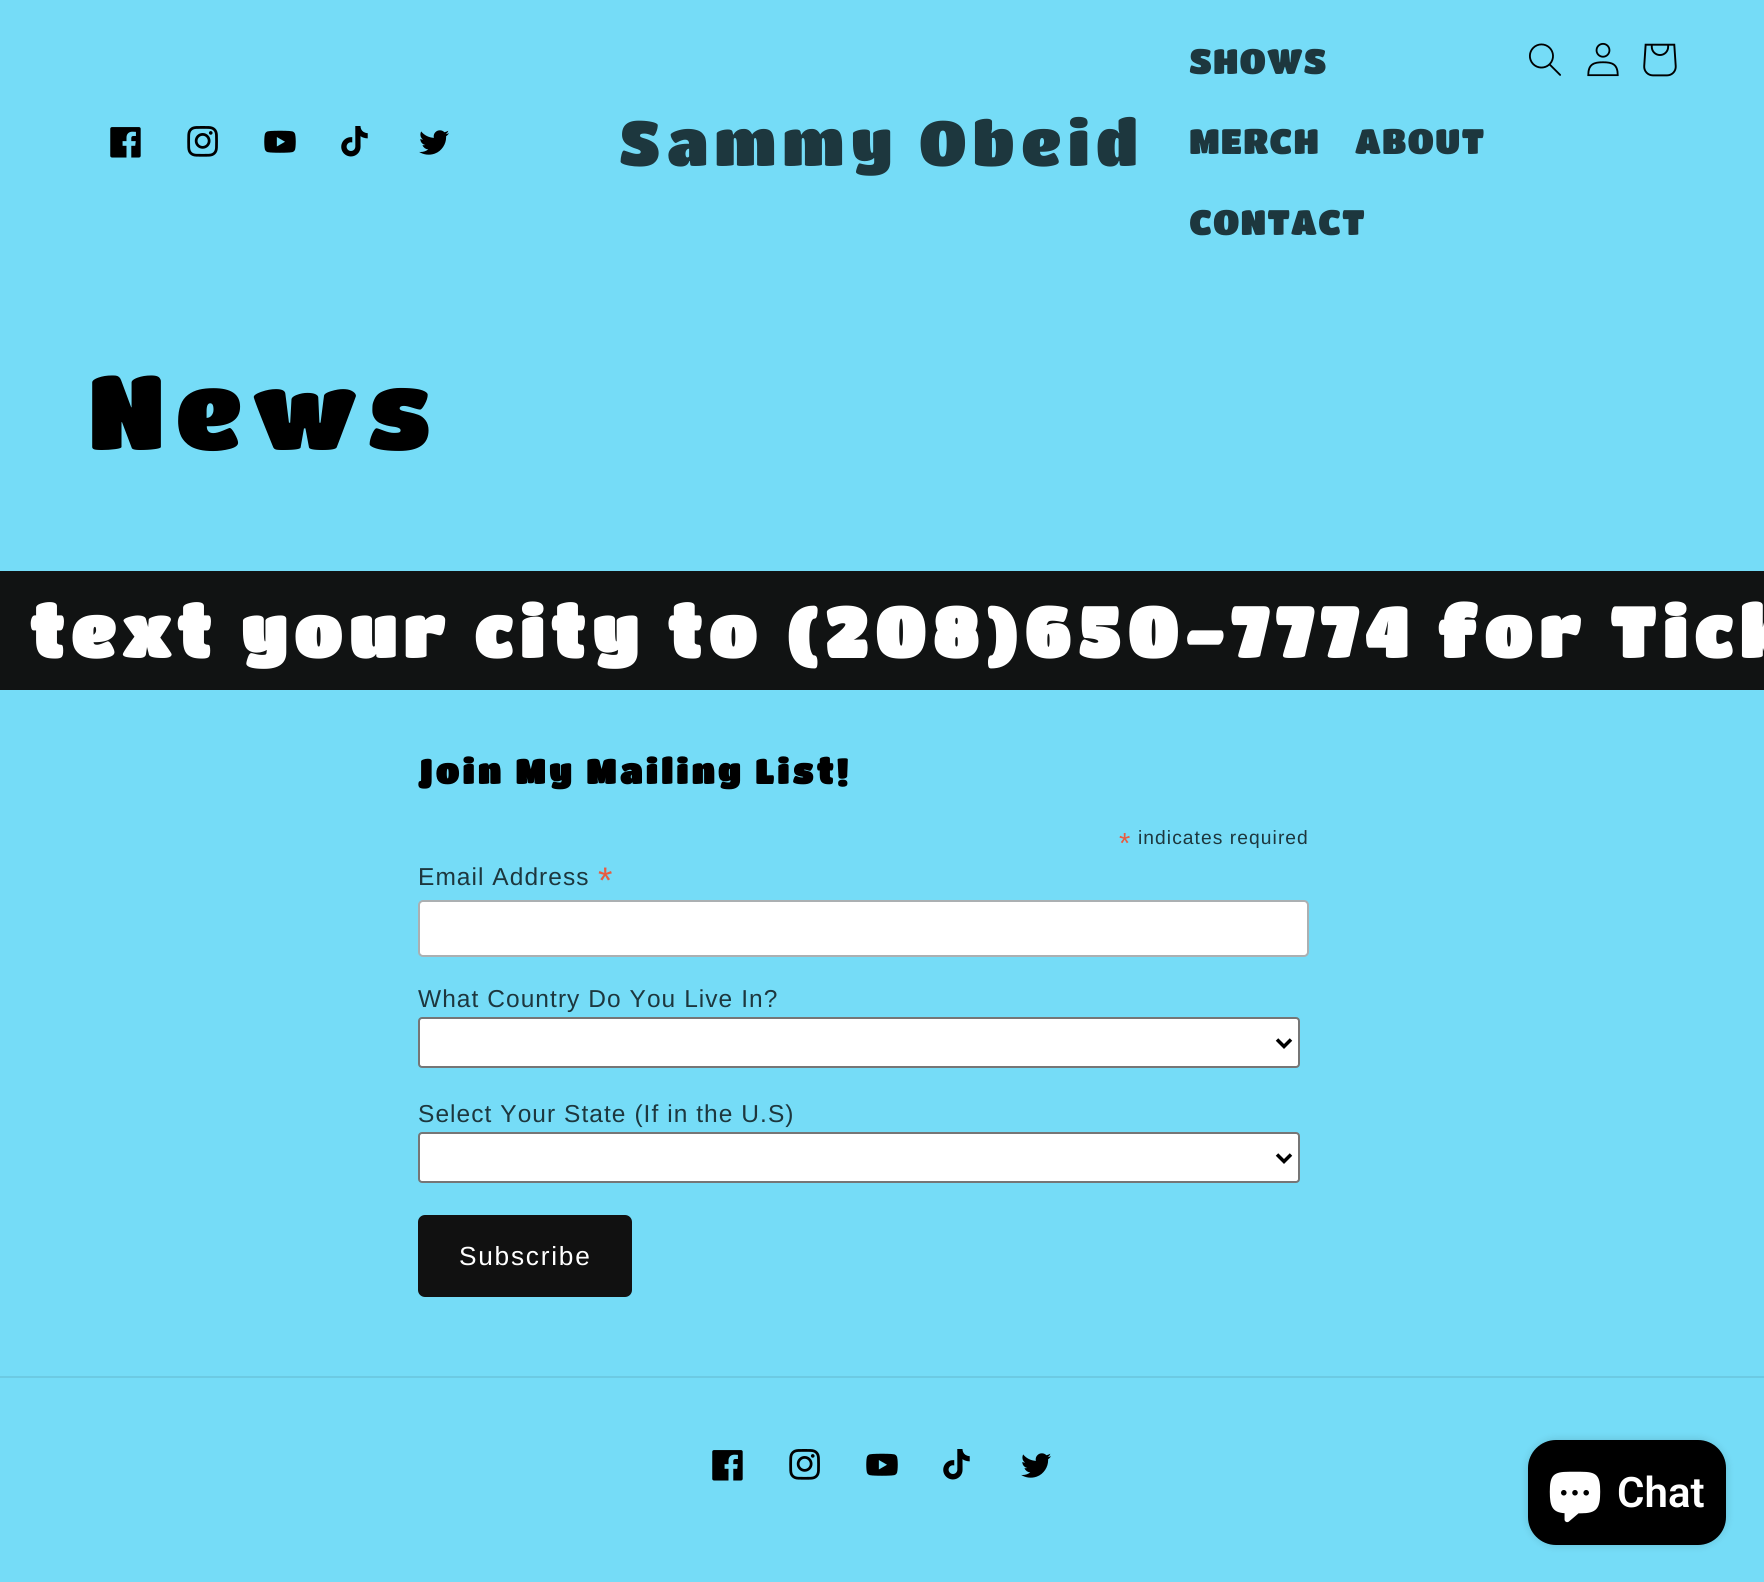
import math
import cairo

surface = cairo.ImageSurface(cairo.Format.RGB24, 1764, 1582)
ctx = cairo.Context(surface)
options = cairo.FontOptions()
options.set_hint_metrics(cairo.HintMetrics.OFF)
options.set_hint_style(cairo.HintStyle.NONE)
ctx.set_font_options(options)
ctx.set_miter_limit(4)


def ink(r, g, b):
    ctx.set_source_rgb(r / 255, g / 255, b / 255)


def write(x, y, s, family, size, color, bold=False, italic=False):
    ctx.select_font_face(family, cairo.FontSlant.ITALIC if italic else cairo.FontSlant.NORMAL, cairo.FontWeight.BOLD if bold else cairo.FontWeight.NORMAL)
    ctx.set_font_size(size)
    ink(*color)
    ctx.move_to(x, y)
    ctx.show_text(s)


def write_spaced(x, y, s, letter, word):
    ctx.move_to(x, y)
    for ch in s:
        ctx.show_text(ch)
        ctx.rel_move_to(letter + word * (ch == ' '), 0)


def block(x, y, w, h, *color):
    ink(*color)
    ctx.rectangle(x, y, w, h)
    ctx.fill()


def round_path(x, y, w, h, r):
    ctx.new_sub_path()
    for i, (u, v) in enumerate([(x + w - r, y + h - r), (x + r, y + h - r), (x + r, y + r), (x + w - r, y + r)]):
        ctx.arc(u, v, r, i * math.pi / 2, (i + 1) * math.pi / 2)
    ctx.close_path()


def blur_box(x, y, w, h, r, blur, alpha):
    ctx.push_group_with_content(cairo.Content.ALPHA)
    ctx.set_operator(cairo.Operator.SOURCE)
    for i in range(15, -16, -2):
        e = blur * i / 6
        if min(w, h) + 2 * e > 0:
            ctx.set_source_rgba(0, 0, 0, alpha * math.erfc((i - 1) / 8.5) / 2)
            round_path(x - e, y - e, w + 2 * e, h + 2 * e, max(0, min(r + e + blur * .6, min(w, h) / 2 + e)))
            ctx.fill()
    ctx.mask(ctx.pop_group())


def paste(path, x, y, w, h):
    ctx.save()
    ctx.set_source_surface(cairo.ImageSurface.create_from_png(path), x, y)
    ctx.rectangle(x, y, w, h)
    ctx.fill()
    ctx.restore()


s1 = dict(family="Roboto SemiBold", size=42, color=(255, 255, 255))

ink(117, 220, 247)
ctx.paint()
paste("pic1.png", 110, 127, 31, 31)
paste("pic2.png", 187, 126, 31, 31)
paste("pic3.png", 264, 130, 32, 23)
paste("pic4.png", 341, 126, 27, 31)
paste("pic5.png", 419, 130, 30, 25)
ctx.select_font_face("Titan One")
ctx.set_font_size(63)
ink(29, 55, 62)
write_spaced(619, 166, "Sammy Obeid", 6.25, 0)
ctx.set_font_size(35)
write_spaced(1189, 74, "SHOWS", 1.05, 0)
write_spaced(1189, 154, "MERCH", 1.05, 0)
write_spaced(1355, 154, "ABOUT", 1.05, 0)
write_spaced(1189, 235, "CONTACT", 1.05, 0)
paste("pic6.png", 1529, 43, 32, 33)
paste("pic7.png", 1587, 42, 32, 35)
paste("pic8.png", 1643, 43, 34, 34)
ctx.set_font_size(105)
ink(0, 0, 0)
write_spaced(88, 450, "News", 10.5, 0)
block(0, 571, 1764, 119, 17, 19, 19)
ctx.select_font_face("Titan One", cairo.FontSlant.NORMAL, cairo.FontWeight.BOLD)
ctx.set_font_size(70)
ink(255, 255, 255)
write_spaced(30, 658, "text your city to (208)650-7774 for Tick", 7, 0)
ctx.set_font_size(34.25)
ink(0, 0, 0)
write_spaced(418, 784, "Join My Mailing List!", 3.4, 0)
ctx.select_font_face("Liberation Sans")
ctx.set_font_size(29)
ink(232, 92, 65)
write_spaced(1119, 853, "*", 1.05, 0)
ctx.set_font_size(19.25)
ink(29, 55, 62)
write_spaced(1138, 844, "indicates required", 1.05, 0)
ctx.set_font_size(24.5)
write_spaced(418, 885, "Email Address", 1.05, 0)
ctx.set_font_size(37)
ink(232, 92, 65)
write_spaced(598, 893, "*", 1.05, 0)
ink(255, 255, 255)
round_path(419, 901, 889, 55, 4)
ctx.fill_preserve()
ink(171, 176, 178)
ctx.stroke()
ctx.set_font_size(24.5)
ink(29, 55, 62)
write_spaced(418, 1007, "What Country Do You Live In?", 1.05, 0)
ink(255, 255, 255)
round_path(419, 1018, 880, 49, 3)
ctx.fill_preserve()
ink(118, 118, 118)
ctx.stroke()
ctx.new_path()
ctx.move_to(1277, 1039.5)
ctx.line_to(1284, 1046.5)
ctx.line_to(1291, 1039.5)
ink(0, 0, 0)
ctx.set_line_width(3.5)
ctx.stroke()
ink(29, 55, 62)
write_spaced(418, 1122, "Select Your State (If in the U.S)", 1.05, 0)
ink(255, 255, 255)
round_path(419, 1133, 880, 49, 3)
ctx.fill_preserve()
ink(118, 118, 118)
ctx.set_line_width(2)
ctx.stroke()
ctx.new_path()
ctx.move_to(1277, 1154.5)
ctx.line_to(1284, 1161.5)
ctx.line_to(1291, 1154.5)
ink(0, 0, 0)
ctx.set_line_width(3.5)
ctx.stroke()
ink(17, 17, 17)
round_path(418, 1215, 214, 82, 7)
ctx.fill()
ctx.set_font_size(26.25)
ink(255, 255, 255)
write_spaced(459, 1265, "Subscribe", 1.75, 0)
block(0, 1376, 1764, 2, 108, 202, 227)
paste("pic1.png", 712, 1450, 31, 31)
paste("pic2.png", 789, 1449, 31, 31)
paste("pic3.png", 866, 1453, 32, 23)
paste("pic4.png", 943, 1449, 27, 31)
paste("pic5.png", 1021, 1453, 30, 25)
ink(0, 0, 0)
blur_box(1528, 1440, 198, 105, 28, 4.5, 0.15)
ink(0, 0, 0)
round_path(1528, 1440, 198, 105, 28)
ctx.fill()
paste("pic9.png", 1549, 1471, 52, 52)
write(1617, 1507, "Chat", **s1)
surface.write_to_png("screenshot.png")
